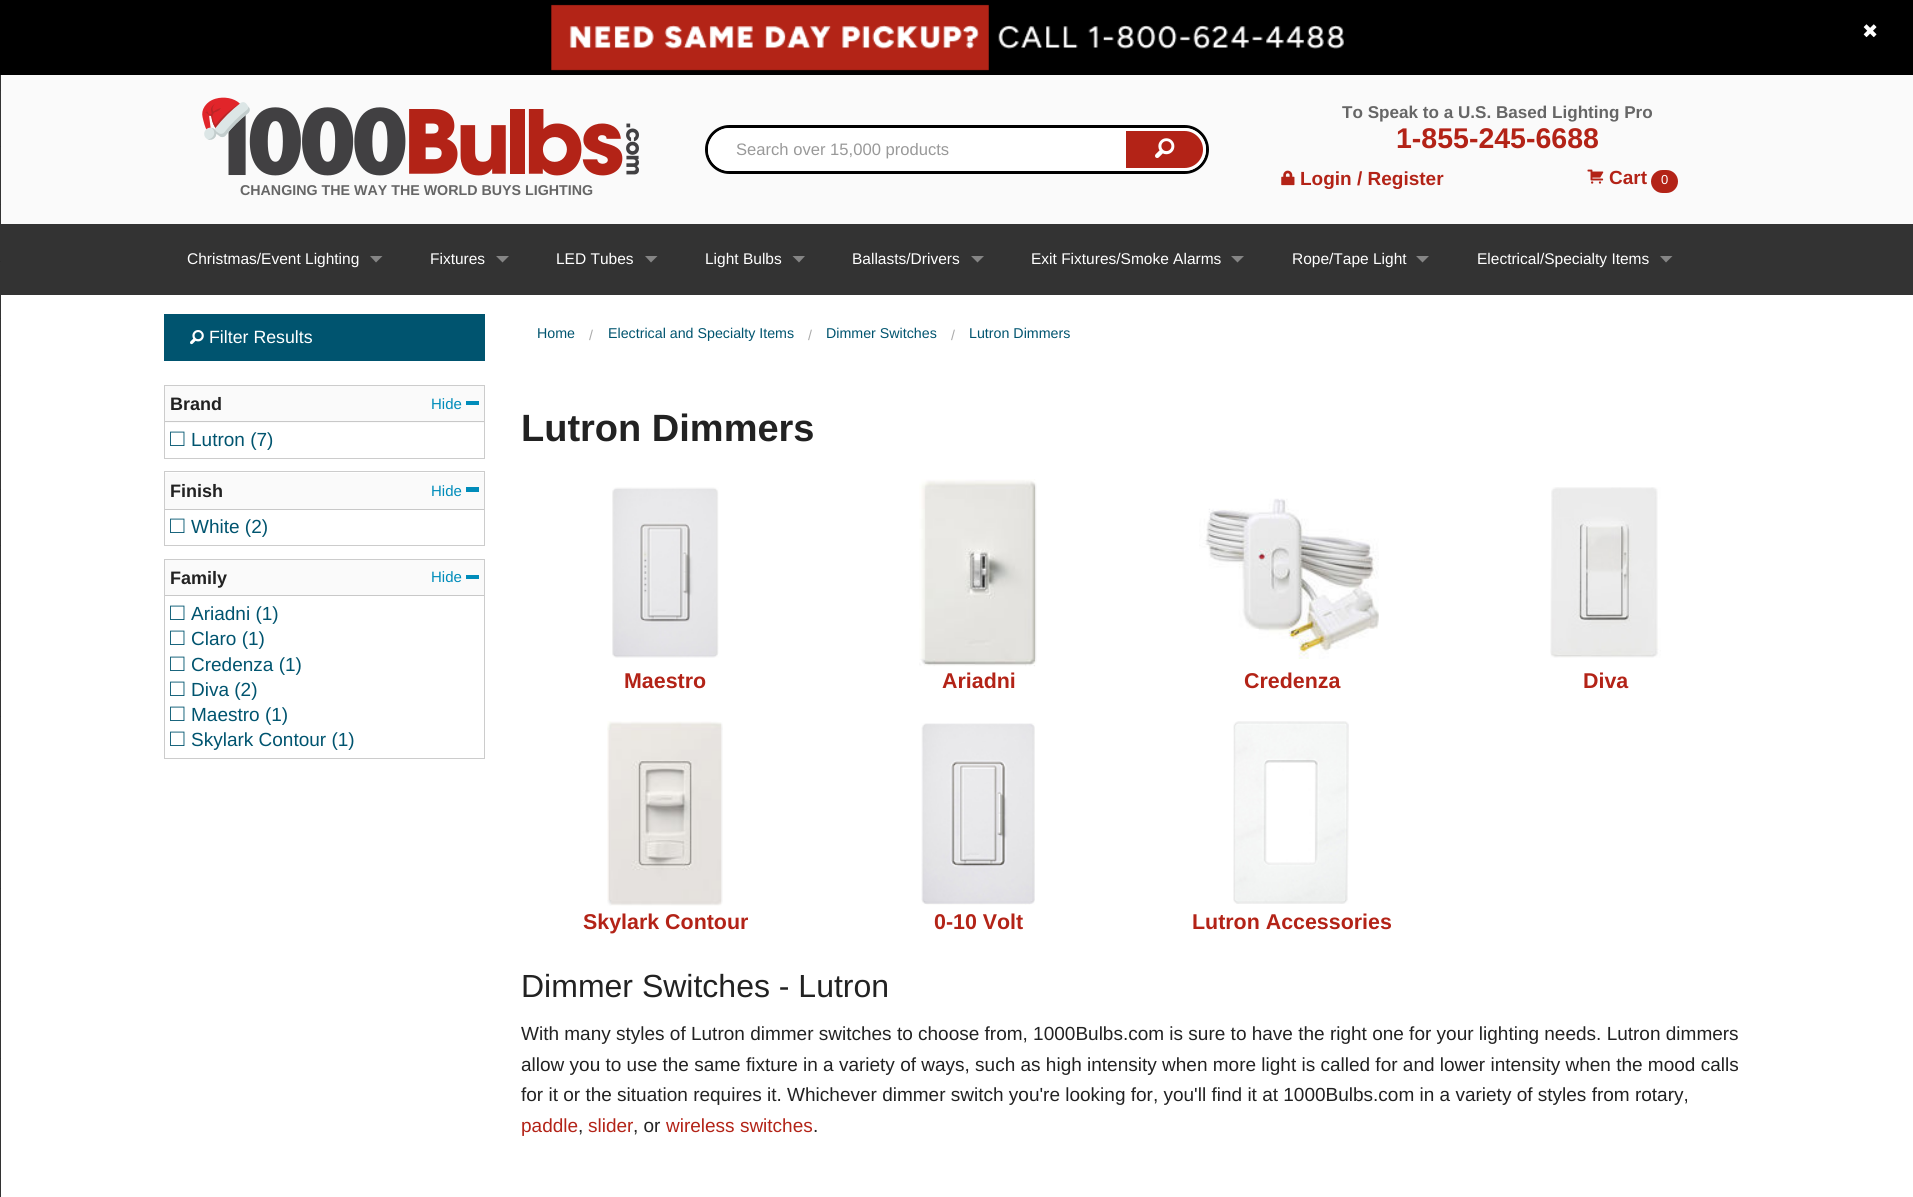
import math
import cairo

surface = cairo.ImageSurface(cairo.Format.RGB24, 1913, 1197)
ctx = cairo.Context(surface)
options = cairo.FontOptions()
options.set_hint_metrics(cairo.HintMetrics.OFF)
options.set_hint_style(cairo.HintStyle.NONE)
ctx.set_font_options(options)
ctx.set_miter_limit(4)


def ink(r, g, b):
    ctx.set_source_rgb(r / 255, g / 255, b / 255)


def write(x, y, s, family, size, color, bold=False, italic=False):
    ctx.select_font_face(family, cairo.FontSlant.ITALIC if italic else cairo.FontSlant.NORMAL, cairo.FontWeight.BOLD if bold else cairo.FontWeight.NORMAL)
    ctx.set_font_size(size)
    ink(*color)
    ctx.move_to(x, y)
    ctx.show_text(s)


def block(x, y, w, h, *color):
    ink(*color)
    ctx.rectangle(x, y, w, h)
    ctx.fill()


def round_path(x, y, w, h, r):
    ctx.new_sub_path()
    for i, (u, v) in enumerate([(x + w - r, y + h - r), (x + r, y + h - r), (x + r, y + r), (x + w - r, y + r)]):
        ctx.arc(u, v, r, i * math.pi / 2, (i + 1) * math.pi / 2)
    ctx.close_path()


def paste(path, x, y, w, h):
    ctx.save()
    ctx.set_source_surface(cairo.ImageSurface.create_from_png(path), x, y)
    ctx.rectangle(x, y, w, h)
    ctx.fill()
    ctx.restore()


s1 = dict(family="Liberation Sans", size=16.6, color=(153, 153, 153))
s2 = dict(family="Liberation Sans", size=17.1, color=(102, 102, 102), bold=True)
s3 = dict(family="Liberation Sans", size=28.5, color=(179, 35, 23), bold=True)
s4 = dict(family="Liberation Sans", size=19, color=(179, 35, 23), bold=True)
s5 = dict(family="Liberation Sans", size=13, color=(255, 255, 255))
s6 = dict(family="Liberation Sans", size=14.25, color=(102, 102, 102), bold=True)
s7 = dict(family="Liberation Sans", size=15.5, color=(255, 255, 255))
s8 = dict(family="Liberation Sans", size=17.75, color=(255, 255, 255))
s9 = dict(family="Liberation Sans", size=18, color=(34, 34, 34), bold=True)
s10 = dict(family="Liberation Sans", size=15, color=(0, 140, 186))
s11 = dict(family="Liberation Sans", size=24, color=(0, 84, 111))
s12 = dict(family="Liberation Sans", size=19, color=(0, 84, 111))
s13 = dict(family="Liberation Sans", size=14.25, color=(0, 84, 111))
s14 = dict(family="Liberation Sans", size=14.25, color=(170, 170, 170))
s15 = dict(family="Liberation Sans", size=38, color=(34, 34, 34), bold=True)
s16 = dict(family="Liberation Sans", size=21.4, color=(179, 35, 23), bold=True)
s17 = dict(family="Liberation Sans", size=32, color=(34, 34, 34))
s18 = dict(family="Liberation Sans", size=19, color=(34, 34, 34))
s19 = dict(family="Liberation Sans", size=19, color=(179, 35, 23))

ink(255, 255, 255)
ctx.paint()
block(0, 0, 1913, 75, 0, 0, 0)
paste("pic1.png", 551, 4, 793, 67)
paste("pic2.png", 1863, 24, 14, 14)
block(0, 75, 1, 1122, 51, 51, 51)
block(0, 90, 1, 1, 46, 46, 46)
block(0, 146, 1, 1, 46, 46, 46)
block(0, 204, 1, 1, 46, 46, 46)
block(0, 261, 1, 1, 46, 46, 46)
block(0, 318, 1, 1, 46, 46, 46)
block(0, 375, 1, 1, 46, 46, 46)
block(0, 431, 1, 1, 46, 46, 46)
block(0, 489, 1, 1, 46, 46, 46)
block(0, 545, 1, 1, 46, 46, 46)
block(0, 603, 1, 1, 46, 46, 46)
block(0, 660, 1, 1, 46, 46, 46)
block(0, 716, 1, 1, 46, 46, 46)
block(0, 774, 1, 1, 46, 46, 46)
block(0, 830, 1, 1, 46, 46, 46)
block(0, 888, 1, 1, 46, 46, 46)
block(0, 944, 1, 1, 46, 46, 46)
block(0, 1001, 1, 1, 46, 46, 46)
block(0, 1058, 1, 1, 46, 46, 46)
block(1, 75, 1912, 149, 250, 250, 250)
round_path(706.5, 126.5, 501, 46, 23)
ink(0, 0, 0)
ctx.set_line_width(3)
ctx.stroke()
ink(255, 255, 255)
ctx.new_path()
ctx.move_to(729.5, 129.5)
ctx.line_to(1121.5, 129.5)
ctx.line_to(1121.5, 169.5)
ctx.line_to(729.5, 169.5)
ctx.curve_to(718.5, 169.5, 709.5, 160.5, 709.5, 149.5)
ctx.curve_to(709.5, 138.5, 718.5, 129.5, 729.5, 129.5)
ctx.close_path()
ctx.fill_preserve()
ctx.stroke()
write(736, 155, "Search over 15,000 products", **s1)
ink(179, 35, 23)
ctx.new_path()
ctx.move_to(1124.5, 129.5)
ctx.line_to(1184.5, 129.5)
ctx.curve_to(1195.5, 129.5, 1204.5, 138.5, 1204.5, 149.5)
ctx.curve_to(1204.5, 160.5, 1195.5, 169.5, 1184.5, 169.5)
ctx.line_to(1124.5, 169.5)
ctx.close_path()
ctx.fill_preserve()
ink(255, 255, 255)
ctx.stroke()
paste("pic3.png", 1155, 138, 20, 20)
write(1342, 118, "To Speak to a U.S. Based Lighting Pro", **s2)
write(1396, 148, "1-855-245-6688", **s3)
paste("pic4.png", 1281, 170, 14, 16)
write(1300, 185, "Login / Register", **s4)
paste("pic5.png", 1587, 169, 17, 15)
write(1609, 184, "Cart", **s4)
round_path(1651, 170, 27, 23, 11.5)
ctx.fill()
write(1661, 184, "0", **s5)
paste("pic6.png", 202, 97, 437, 79)
write(240, 195, "CHANGING THE WAY THE WORLD BUYS LIGHTING", **s6)
block(1, 224, 1912, 71, 51, 51, 51)
write(187, 264, "Christmas/Event Lighting", **s7)
ink(133, 133, 133)
ctx.new_path()
ctx.move_to(370, 256)
ctx.line_to(382.5, 256)
ctx.line_to(376, 262.5)
ctx.close_path()
ctx.fill()
write(430, 264, "Fixtures", **s7)
ink(133, 133, 133)
ctx.new_path()
ctx.move_to(496, 256)
ctx.line_to(509, 256)
ctx.line_to(502.5, 262.5)
ctx.close_path()
ctx.fill()
write(556, 264, "LED Tubes", **s7)
ink(133, 133, 133)
ctx.new_path()
ctx.move_to(645, 256)
ctx.line_to(657.5, 256)
ctx.line_to(651, 262.5)
ctx.close_path()
ctx.fill()
write(705, 264, "Light Bulbs", **s7)
ink(133, 133, 133)
ctx.new_path()
ctx.move_to(792.5, 256)
ctx.line_to(805, 256)
ctx.line_to(799, 262.5)
ctx.close_path()
ctx.fill()
write(852, 264, "Ballasts/Drivers", **s7)
ink(133, 133, 133)
ctx.new_path()
ctx.move_to(971, 256)
ctx.line_to(984, 256)
ctx.line_to(977.5, 262.5)
ctx.close_path()
ctx.fill()
write(1031, 264, "Exit Fixtures/Smoke Alarms", **s7)
ink(133, 133, 133)
ctx.new_path()
ctx.move_to(1231, 256)
ctx.line_to(1244, 256)
ctx.line_to(1237.5, 262.5)
ctx.close_path()
ctx.fill()
write(1292, 264, "Rope/Tape Light", **s7)
ink(133, 133, 133)
ctx.new_path()
ctx.move_to(1416, 256)
ctx.line_to(1429, 256)
ctx.line_to(1422.5, 262.5)
ctx.close_path()
ctx.fill()
write(1477, 264, "Electrical/Specialty Items", **s7)
ink(133, 133, 133)
ctx.new_path()
ctx.move_to(1660, 256)
ctx.line_to(1672.5, 256)
ctx.line_to(1666, 262.5)
ctx.close_path()
ctx.fill()
block(164, 314, 321, 47, 0, 84, 111)
paste("pic7.png", 190, 330, 14, 15)
write(209, 343, "Filter Results", **s8)
ctx.rectangle(164.5, 385.5, 320, 73)
ink(204, 204, 204)
ctx.set_line_width(1)
ctx.stroke()
block(165, 386, 319, 37, 250, 250, 250)
block(165, 421, 319, 1, 200, 200, 200)
write(170, 410, "Brand", **s9)
write(431, 409, "Hide", **s10)
block(466, 401, 13, 4, 0, 140, 186)
write(170, 446, "□", **s11)
write(191, 446, "Lutron (7)", **s12)
ctx.rectangle(164.5, 471.5, 320, 74)
ink(204, 204, 204)
ctx.stroke()
block(165, 473, 319, 36, 250, 250, 250)
block(165, 509, 319, 1, 200, 200, 200)
write(170, 497, "Finish", **s9)
write(431, 496, "Hide", **s10)
block(466, 487, 13, 5, 0, 140, 186)
write(170, 533, "□", **s11)
write(191, 533, "White (2)", **s12)
ctx.rectangle(164.5, 559.5, 320, 199)
ink(204, 204, 204)
ctx.stroke()
block(165, 560, 319, 35, 250, 250, 250)
block(165, 595, 319, 1, 200, 200, 200)
write(170, 584, "Family", **s9)
write(431, 582, "Hide", **s10)
block(466, 575, 13, 4, 0, 140, 186)
write(170, 620, "□", **s11)
write(191, 620, "Ariadni (1)", **s12)
write(170, 645, "□", **s11)
write(191, 645, "Claro (1)", **s12)
write(170, 671, "□", **s11)
write(191, 671, "Credenza (1)", **s12)
write(170, 696, "□", **s11)
write(191, 696, "Diva (2)", **s12)
write(170, 721, "□", **s11)
write(191, 721, "Maestro (1)", **s12)
write(170, 746, "□", **s11)
write(191, 746, "Skylark Contour (1)", **s12)
write(537, 338, "Home", **s13)
write(589, 340, "/", **s14)
write(608, 338, "Electrical and Specialty Items", **s13)
write(808, 340, "/", **s14)
write(826, 338, "Dimmer Switches", **s13)
write(951, 340, "/", **s14)
write(969, 338, "Lutron Dimmers", **s13)
write(521, 441, "Lutron Dimmers", **s15)
paste("pic8.png", 612, 487, 107, 171)
write(624, 688, "Maestro", **s16)
paste("pic9.png", 919, 479, 118, 188)
write(942, 688, "Ariadni", **s16)
paste("pic10.png", 1199, 498, 180, 161)
write(1244, 688, "Credenza", **s16)
paste("pic11.png", 1550, 487, 111, 171)
write(1583, 688, "Diva", **s16)
paste("pic12.png", 607, 721, 116, 185)
write(583, 929, "Skylark Contour", **s16)
paste("pic13.png", 921, 723, 114, 182)
write(934, 929, "0-10 Volt", **s16)
paste("pic14.png", 1233, 721, 116, 183)
write(1192, 929, "Lutron Accessories", **s16)
write(521, 997, "Dimmer Switches - Lutron", **s17)
write(521, 1040, "With many styles of Lutron dimmer switches to choose from, 1000Bulbs.com is sure to have the right one for your lighting needs. Lutron dimmers", **s18)
write(521, 1071, "allow you to use the same fixture in a variety of ways, such as high intensity when more light is called for and lower intensity when the mood calls", **s18)
write(521, 1101, "for it or the situation requires it. Whichever dimmer switch you're looking for, you'll find it at 1000Bulbs.com in a variety of styles from rotary,", **s18)
write(521, 1132, "paddle", **s19)
write(578, 1132, ",", **s18)
write(588, 1132, "slider", **s19)
write(633, 1132, ", or", **s18)
write(666, 1132, "wireless switches", **s19)
write(813, 1132, ".", **s18)
surface.write_to_png("screenshot.png")
